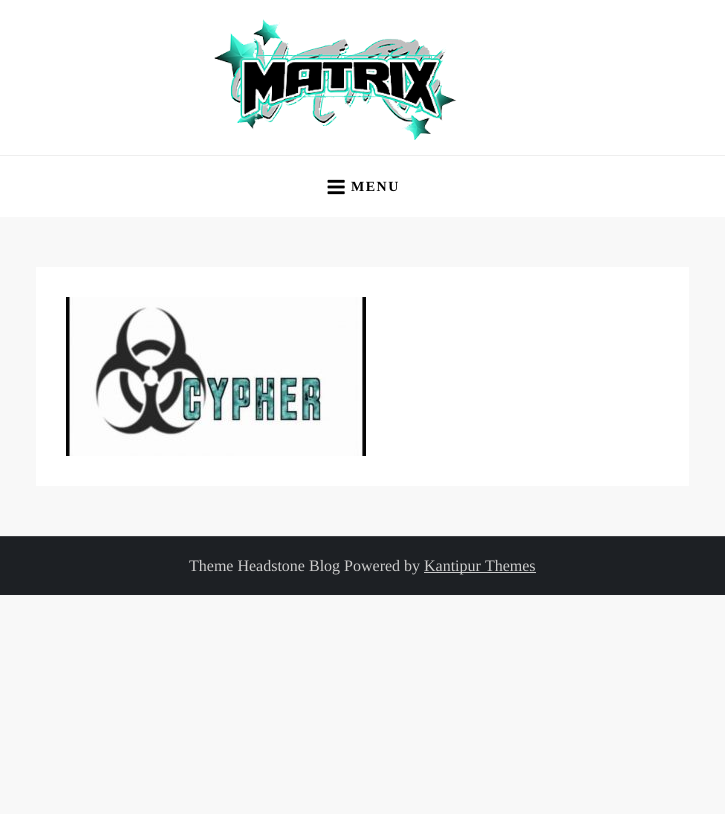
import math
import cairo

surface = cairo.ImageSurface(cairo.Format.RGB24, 725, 814)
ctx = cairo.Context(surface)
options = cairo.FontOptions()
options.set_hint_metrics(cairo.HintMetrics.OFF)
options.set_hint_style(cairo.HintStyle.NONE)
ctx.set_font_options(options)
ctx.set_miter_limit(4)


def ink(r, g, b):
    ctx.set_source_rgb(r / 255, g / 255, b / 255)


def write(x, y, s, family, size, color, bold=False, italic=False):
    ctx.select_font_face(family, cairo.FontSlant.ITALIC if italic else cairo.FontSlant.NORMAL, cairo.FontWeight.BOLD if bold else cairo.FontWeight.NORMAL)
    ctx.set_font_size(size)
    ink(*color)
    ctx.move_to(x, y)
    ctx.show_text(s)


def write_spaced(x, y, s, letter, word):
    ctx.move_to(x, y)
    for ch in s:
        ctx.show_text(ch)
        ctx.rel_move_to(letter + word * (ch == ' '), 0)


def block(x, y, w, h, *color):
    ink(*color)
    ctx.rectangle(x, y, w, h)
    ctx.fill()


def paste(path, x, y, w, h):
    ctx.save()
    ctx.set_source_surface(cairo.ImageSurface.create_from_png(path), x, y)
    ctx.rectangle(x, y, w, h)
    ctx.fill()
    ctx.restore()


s1 = dict(family="Liberation Serif", size=16, color=(204, 204, 204))

ink(248, 248, 248)
ctx.paint()
block(0, 0, 725, 217, 255, 255, 255)
paste("pic1.png", 214, 19, 243, 121)
block(0, 155, 725, 1, 238, 238, 238)
paste("pic2.png", 327, 179, 18, 16)
ctx.select_font_face("Liberation Serif", cairo.FontSlant.NORMAL, cairo.FontWeight.BOLD)
ctx.set_font_size(14)
ink(0, 0, 0)
write_spaced(351, 191, "MENU", 1.5, 0)
block(36, 267, 653, 219, 255, 255, 255)
paste("pic3.png", 66, 297, 300, 159)
block(0, 537, 725, 58, 29, 32, 36)
block(0, 536, 725, 1, 63, 65, 69)
write(189, 571, "Theme Headstone Blog Powered by", **s1)
block(424, 572, 112, 1, 204, 204, 204)
write(424, 571, "Kantipur Themes", **s1)
surface.write_to_png("screenshot.png")
